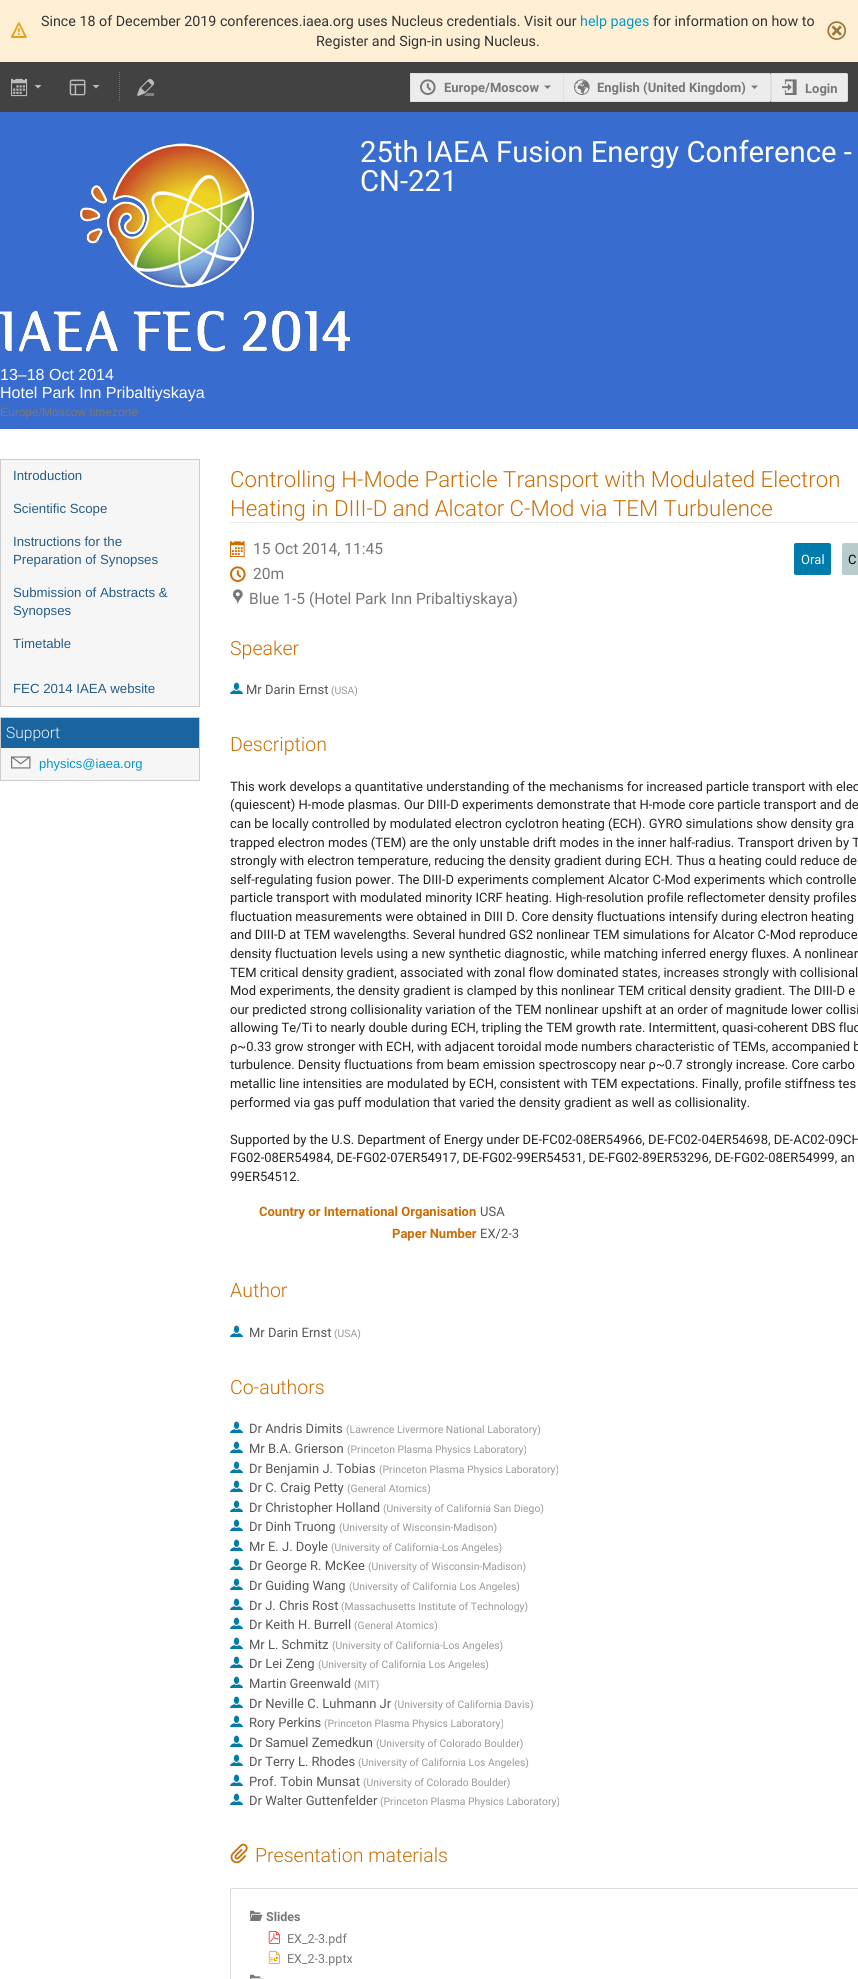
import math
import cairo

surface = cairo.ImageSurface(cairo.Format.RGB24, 858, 1979)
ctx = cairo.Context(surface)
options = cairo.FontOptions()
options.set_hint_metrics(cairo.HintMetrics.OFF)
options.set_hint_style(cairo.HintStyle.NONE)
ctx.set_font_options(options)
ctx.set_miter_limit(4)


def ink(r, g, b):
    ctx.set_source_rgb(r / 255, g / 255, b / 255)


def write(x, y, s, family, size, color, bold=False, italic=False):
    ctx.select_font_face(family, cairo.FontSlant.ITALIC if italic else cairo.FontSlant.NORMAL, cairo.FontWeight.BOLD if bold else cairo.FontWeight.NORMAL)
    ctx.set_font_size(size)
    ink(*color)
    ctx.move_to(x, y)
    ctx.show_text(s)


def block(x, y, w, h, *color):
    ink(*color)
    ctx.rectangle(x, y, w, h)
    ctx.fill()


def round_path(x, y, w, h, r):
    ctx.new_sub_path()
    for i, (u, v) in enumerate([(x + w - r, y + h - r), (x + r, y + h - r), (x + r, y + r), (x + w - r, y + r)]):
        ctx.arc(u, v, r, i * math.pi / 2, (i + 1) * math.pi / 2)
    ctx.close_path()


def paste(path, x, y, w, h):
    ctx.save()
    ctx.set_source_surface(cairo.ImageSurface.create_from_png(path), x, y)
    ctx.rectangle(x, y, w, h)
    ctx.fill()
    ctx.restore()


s1 = dict(family="Roboto", size=14.3, color=(51, 51, 51))
s2 = dict(family="Roboto", size=14.3, color=(0, 153, 204))
s3 = dict(family="Roboto", size=13, color=(119, 119, 119), bold=True)
s4 = dict(family="Roboto", size=29.3, color=(255, 255, 255))
s5 = dict(family="Liberation Sans", size=16, color=(255, 255, 255))
s6 = dict(family="Liberation Sans", size=12, color=(119, 119, 119))
s7 = dict(family="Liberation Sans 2", size=13.25, color=(39, 92, 134))
s8 = dict(family="Roboto Light", size=15.6, color=(243, 243, 243))
s9 = dict(family="Liberation Sans", size=13, color=(0, 153, 204))
s10 = dict(family="Roboto Light", size=22.25, color=(203, 109, 4))
s11 = dict(family="Roboto", size=15.6, color=(119, 119, 119))
s12 = dict(family="Roboto", size=13, color=(249, 249, 249))
s13 = dict(family="Roboto", size=13, color=(15, 2, 2))
s14 = dict(family="Roboto Light", size=19.5, color=(203, 109, 4))
s15 = dict(family="Roboto", size=13, color=(85, 85, 85))
s16 = dict(family="Roboto", size=10.4, color=(153, 153, 153))
s17 = dict(family="Roboto", size=13, color=(33, 33, 33))
s18 = dict(family="Roboto", size=13, color=(203, 109, 4), bold=True)
s19 = dict(family="Roboto", size=12.5, color=(119, 119, 119), bold=True)
s20 = dict(family="Roboto", size=12.5, color=(119, 119, 119))

ink(255, 255, 255)
ctx.paint()
block(0, 0, 858, 62, 255, 239, 212)
paste("pic1.png", 11, 22, 16, 16)
write(41, 26, "Since 18 of December 2019 conferences.iaea.org uses Nucleus credentials. Visit our", **s1)
write(580, 26, "help pages", **s2)
write(653, 26, "for information on how to", **s1)
write(316, 46, "Register and Sign-in using Nucleus.", **s1)
paste("pic2.png", 827, 21, 20, 19)
block(0, 62, 858, 50, 66, 66, 66)
paste("pic3.png", 11, 78, 17, 19)
ink(187, 187, 187)
ctx.new_path()
ctx.move_to(34.5, 85)
ctx.line_to(38, 88.5)
ctx.line_to(41.5, 85)
ctx.close_path()
ctx.fill()
paste("pic4.png", 69, 79, 17, 17)
ctx.new_path()
ctx.move_to(92.5, 85)
ctx.line_to(96, 88.5)
ctx.line_to(99.5, 85)
ctx.close_path()
ctx.fill()
ctx.new_path()
ctx.move_to(119.5, 72)
ctx.line_to(119.5, 102)
ink(119, 119, 119)
ctx.set_line_width(1)
ctx.set_dash([1, 1])
ctx.stroke()
paste("pic5.png", 137, 79, 18, 17)
block(411, 74, 152, 27, 236, 236, 236)
block(410, 73, 153, 1, 223, 223, 223)
block(410, 101, 153, 1, 223, 223, 223)
block(410, 73, 1, 29, 223, 223, 223)
paste("pic6.png", 420, 79, 16, 16)
write(444, 92, "Europe/Moscow", **s3)
ctx.new_path()
ctx.move_to(544, 85.5)
ctx.line_to(547.5, 89)
ctx.line_to(551, 85.5)
ctx.close_path()
ctx.fill()
ink(236, 236, 236)
ctx.new_path()
ctx.move_to(563.5, 73.5)
ctx.line_to(769, 73.5)
ctx.curve_to(770, 73.5, 770.5, 74, 770.5, 75)
ctx.line_to(770.5, 100)
ctx.curve_to(770.5, 101, 770, 101.5, 769, 101.5)
ctx.line_to(563.5, 101.5)
ctx.close_path()
ctx.fill_preserve()
ink(223, 223, 223)
ctx.set_dash([])
ctx.stroke()
paste("pic7.png", 574, 79, 16, 16)
write(597, 92, "English (United Kingdom)", **s3)
ctx.new_path()
ctx.move_to(751, 85.5)
ctx.line_to(754.5, 89)
ctx.line_to(758, 85.5)
ctx.close_path()
ctx.fill()
ink(236, 236, 236)
ctx.new_path()
ctx.move_to(771.5, 73.5)
ctx.line_to(846, 73.5)
ctx.curve_to(847, 73.5, 847.5, 74, 847.5, 75)
ctx.line_to(847.5, 100)
ctx.curve_to(847.5, 101, 847, 101.5, 846, 101.5)
ctx.line_to(771.5, 101.5)
ctx.close_path()
ctx.fill_preserve()
ink(223, 223, 223)
ctx.stroke()
paste("pic8.png", 782, 79, 15, 16)
write(805, 93, "Login", **s3)
block(0, 112, 858, 317, 57, 108, 207)
paste("pic9.png", 0, 143, 350, 209)
write(360, 162, "25th IAEA Fusion Energy Conference -", **s4)
write(360, 191, "CN-221", **s4)
write(0, 380, "13–18 Oct 2014", **s5)
write(0, 398, "Hotel Park Inn Pribaltiyskaya", **s5)
write(0, 416, "Europe/Moscow timezone", **s6)
ink(246, 246, 246)
ctx.rectangle(0.5, 459.5, 199, 247)
ctx.fill_preserve()
ink(204, 204, 204)
ctx.stroke()
write(13, 480, "Introduction", **s7)
write(13, 513, "Scientific Scope", **s7)
write(13, 546, "Instructions for the", **s7)
write(13, 564, "Preparation of Synopses", **s7)
write(13, 597, "Submission of Abstracts &", **s7)
write(13, 615, "Synopses", **s7)
write(13, 648, "Timetable", **s7)
write(13, 693, "FEC 2014 IAEA website", **s7)
block(1, 748, 198, 32, 246, 246, 246)
ctx.rectangle(0.5, 717.5, 199, 63)
ink(204, 204, 204)
ctx.stroke()
block(1, 718, 198, 30, 26, 100, 160)
write(6, 738, "Support", **s8)
paste("pic10.png", 11, 756, 20, 13)
write(39, 768, "physics@iaea.org", **s9)
block(230, 522, 628, 1, 235, 235, 235)
write(230, 487, "Controlling H-Mode Particle Transport with Modulated Electron", **s10)
write(230, 516, "Heating in DIII-D and Alcator C-Mod via TEM Turbulence", **s10)
paste("pic11.png", 230, 541, 15, 16)
write(253, 554, "15 Oct 2014, 11:45", **s11)
paste("pic12.png", 230, 566, 16, 16)
write(253, 579, "20m", **s11)
paste("pic13.png", 232, 589, 11, 16)
write(249, 604, "Blue 1-5 (Hotel Park Inn Pribaltiyskaya)", **s11)
ink(0, 124, 172)
round_path(794, 543, 37, 32, 2)
ctx.fill()
write(801, 564, "Oral", **s12)
ink(185, 203, 202)
round_path(842, 543, 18, 32, 2)
ctx.fill()
write(848, 564, "C", **s13)
write(230, 655, "Speaker", **s14)
paste("pic14.png", 230, 682, 13, 12)
write(246, 694, "Mr Darin Ernst", **s15)
write(331, 694, "(USA)", **s16)
write(230, 751, "Description", **s14)
write(230, 791, "This work develops a quantitative understanding of the mechanisms for increased particle transport with elec", **s17)
write(230, 809, "(quiescent) H-mode plasmas. Our DIII-D experiments demonstrate that H-mode core particle transport and de", **s17)
write(230, 828, "can be locally controlled by modulated electron cyclotron heating (ECH). GYRO simulations show density gra", **s17)
write(230, 847, "trapped electron modes (TEM) are the only unstable drift modes in the inner half-radius. Transport driven by T", **s17)
write(230, 865, "strongly with electron temperature, reducing the density gradient during ECH. Thus α heating could reduce de", **s17)
write(230, 884, "self-regulating fusion power. The DIII-D experiments complement Alcator C-Mod experiments which controlle", **s17)
write(230, 902, "particle transport with modulated minority ICRF heating. High-resolution profile reflectometer density profiles", **s17)
write(230, 921, "fluctuation measurements were obtained in DIII D. Core density fluctuations intensify during electron heating", **s17)
write(230, 939, "and DIII-D at TEM wavelengths. Several hundred GS2 nonlinear TEM simulations for Alcator C-Mod reproduce", **s17)
write(230, 958, "density fluctuation levels using a new synthetic diagnostic, while matching inferred energy fluxes. A nonlinear", **s17)
write(230, 977, "TEM critical density gradient, associated with zonal flow dominated states, increases strongly with collisional", **s17)
write(230, 995, "Mod experiments, the density gradient is clamped by this nonlinear TEM critical density gradient. The DIII-D e", **s17)
write(230, 1014, "our predicted strong collisionality variation of the TEM nonlinear upshift at an order of magnitude lower collisi", **s17)
write(230, 1032, "allowing Te/Ti to nearly double during ECH, tripling the TEM growth rate. Intermittent, quasi-coherent DBS fluc", **s17)
write(230, 1051, "ρ~0.33 grow stronger with ECH, with adjacent toroidal mode numbers characteristic of TEMs, accompanied b", **s17)
write(230, 1069, "turbulence. Density fluctuations from beam emission spectroscopy near ρ~0.7 strongly increase. Core carbo", **s17)
write(230, 1088, "metallic line intensities are modulated by ECH, consistent with TEM expectations. Finally, profile stiffness tes", **s17)
write(230, 1107, "performed via gas puff modulation that varied the density gradient as well as collisionality.", **s17)
write(230, 1144, "Supported by the U.S. Department of Energy under DE-FC02-08ER54966, DE-FC02-04ER54698, DE-AC02-09CH", **s17)
write(230, 1162, "FG02-08ER54984, DE-FG02-07ER54917, DE-FG02-99ER54531, DE-FG02-89ER53296, DE-FG02-08ER54999, an", **s17)
write(230, 1181, "99ER54512.", **s17)
write(259, 1216, "Country or International Organisation", **s18)
write(480, 1216, "USA", **s15)
write(392, 1238, "Paper Number", **s18)
write(480, 1238, "EX/2-3", **s15)
write(230, 1297, "Author", **s14)
paste("pic14.png", 230, 1325, 13, 12)
write(249, 1337, "Mr Darin Ernst", **s15)
write(334, 1337, "(USA)", **s16)
write(230, 1394, "Co-authors", **s14)
paste("pic14.png", 230, 1421, 13, 12)
write(249, 1433, "Dr Andris Dimits", **s15)
write(346, 1433, "(Lawrence Livermore National Laboratory)", **s16)
paste("pic14.png", 230, 1441, 13, 12)
write(249, 1453, "Mr B.A. Grierson", **s15)
write(347, 1453, "(Princeton Plasma Physics Laboratory)", **s16)
paste("pic14.png", 230, 1461, 13, 12)
write(249, 1473, "Dr Benjamin J. Tobias", **s15)
write(379, 1473, "(Princeton Plasma Physics Laboratory)", **s16)
paste("pic14.png", 230, 1480, 13, 12)
write(249, 1492, "Dr C. Craig Petty", **s15)
write(347, 1492, "(General Atomics)", **s16)
paste("pic14.png", 230, 1500, 13, 12)
write(249, 1512, "Dr Christopher Holland", **s15)
write(383, 1512, "(University of California San Diego)", **s16)
paste("pic14.png", 230, 1519, 13, 12)
write(249, 1531, "Dr Dinh Truong", **s15)
write(339, 1531, "(University of Wisconsin-Madison)", **s16)
paste("pic14.png", 230, 1539, 13, 12)
write(249, 1551, "Mr E. J. Doyle", **s15)
write(331, 1551, "(University of California-Los Angeles)", **s16)
paste("pic14.png", 230, 1558, 13, 12)
write(249, 1570, "Dr George R. McKee", **s15)
write(368, 1570, "(University of Wisconsin-Madison)", **s16)
paste("pic14.png", 230, 1578, 13, 12)
write(249, 1590, "Dr Guiding Wang", **s15)
write(349, 1590, "(University of California Los Angeles)", **s16)
paste("pic14.png", 230, 1598, 13, 12)
write(249, 1610, "Dr J. Chris Rost", **s15)
write(341, 1610, "(Massachusetts Institute of Technology)", **s16)
paste("pic14.png", 230, 1617, 13, 12)
write(249, 1629, "Dr Keith H. Burrell", **s15)
write(354, 1629, "(General Atomics)", **s16)
paste("pic14.png", 230, 1637, 13, 12)
write(249, 1649, "Mr L. Schmitz", **s15)
write(332, 1649, "(University of California-Los Angeles)", **s16)
paste("pic14.png", 230, 1656, 13, 12)
write(249, 1668, "Dr Lei Zeng", **s15)
write(318, 1668, "(University of California Los Angeles)", **s16)
paste("pic14.png", 230, 1676, 13, 12)
write(249, 1688, "Martin Greenwald", **s15)
write(354, 1688, "(MIT)", **s16)
paste("pic14.png", 230, 1696, 13, 12)
write(249, 1708, "Dr Neville C. Luhmann Jr", **s15)
write(394, 1708, "(University of California Davis)", **s16)
paste("pic14.png", 230, 1715, 13, 12)
write(249, 1727, "Rory Perkins", **s15)
write(324, 1727, "(Princeton Plasma Physics Laboratory)", **s16)
paste("pic14.png", 230, 1735, 13, 12)
write(249, 1747, "Dr Samuel Zemedkun", **s15)
write(376, 1747, "(University of Colorado Boulder)", **s16)
paste("pic14.png", 230, 1754, 13, 12)
write(249, 1766, "Dr Terry L. Rhodes", **s15)
write(358, 1766, "(University of California Los Angeles)", **s16)
paste("pic14.png", 230, 1774, 13, 12)
write(249, 1786, "Prof. Tobin Munsat", **s15)
write(363, 1786, "(University of Colorado Boulder)", **s16)
paste("pic14.png", 230, 1793, 13, 12)
write(249, 1805, "Dr Walter Guttenfelder", **s15)
write(380, 1805, "(Princeton Plasma Physics Laboratory)", **s16)
paste("pic15.png", 230, 1843, 18, 21)
write(255, 1862, "Presentation materials", **s14)
round_path(230.5, 1888.5, 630, 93, 1.5)
ink(223, 223, 223)
ctx.stroke()
paste("pic16.png", 250, 1910, 13, 11)
write(266, 1921, "Slides", **s19)
paste("pic17.png", 268, 1931, 12, 13)
write(287, 1943, "EX_2-3.pdf", **s20)
paste("pic18.png", 268, 1951, 12, 13)
write(287, 1963, "EX_2-3.pptx", **s20)
paste("pic19.png", 250, 1974, 13, 5)
surface.write_to_png("screenshot.png")
